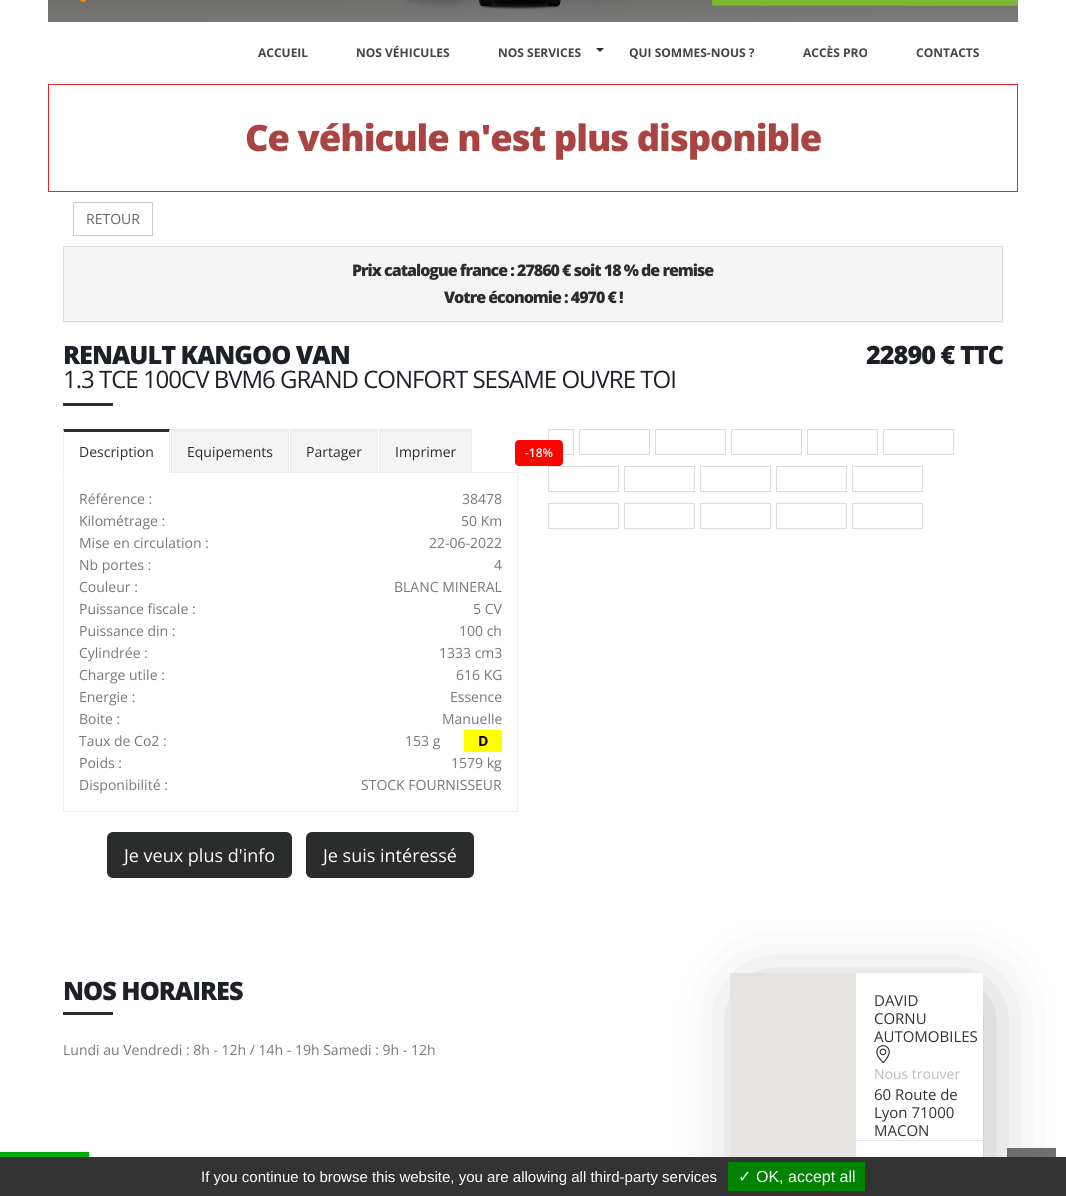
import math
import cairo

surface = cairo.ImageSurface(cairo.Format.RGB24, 1066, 1196)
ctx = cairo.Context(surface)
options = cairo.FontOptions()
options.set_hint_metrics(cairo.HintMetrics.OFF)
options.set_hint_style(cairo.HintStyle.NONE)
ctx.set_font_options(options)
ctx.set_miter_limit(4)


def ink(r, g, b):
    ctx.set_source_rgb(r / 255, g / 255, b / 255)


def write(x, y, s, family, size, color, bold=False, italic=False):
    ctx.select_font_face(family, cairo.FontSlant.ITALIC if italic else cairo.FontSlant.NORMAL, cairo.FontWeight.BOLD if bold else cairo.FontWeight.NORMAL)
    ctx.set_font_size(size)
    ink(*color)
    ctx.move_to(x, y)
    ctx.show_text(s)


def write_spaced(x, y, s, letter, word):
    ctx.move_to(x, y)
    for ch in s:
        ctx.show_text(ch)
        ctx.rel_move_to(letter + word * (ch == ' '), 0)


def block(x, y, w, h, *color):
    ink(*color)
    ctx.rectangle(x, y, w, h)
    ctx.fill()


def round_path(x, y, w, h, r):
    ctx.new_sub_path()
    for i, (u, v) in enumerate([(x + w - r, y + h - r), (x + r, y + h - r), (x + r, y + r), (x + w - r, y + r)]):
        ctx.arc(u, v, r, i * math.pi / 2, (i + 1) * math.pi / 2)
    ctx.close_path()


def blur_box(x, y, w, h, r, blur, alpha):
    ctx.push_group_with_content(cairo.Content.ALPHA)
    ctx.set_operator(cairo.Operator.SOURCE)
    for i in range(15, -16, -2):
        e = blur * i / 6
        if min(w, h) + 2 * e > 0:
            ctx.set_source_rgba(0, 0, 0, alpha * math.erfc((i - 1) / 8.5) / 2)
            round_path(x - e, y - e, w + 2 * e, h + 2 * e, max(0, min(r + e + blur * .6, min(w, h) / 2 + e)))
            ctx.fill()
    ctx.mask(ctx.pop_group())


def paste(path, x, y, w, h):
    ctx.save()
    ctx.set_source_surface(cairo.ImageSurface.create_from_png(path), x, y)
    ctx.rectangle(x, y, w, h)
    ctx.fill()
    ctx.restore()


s1 = dict(family="Open Sans", size=12, color=(68, 68, 68), bold=True)
s2 = dict(family="Open Sans", size=14, color=(102, 102, 102))
s3 = dict(family="Open Sans", size=14, color=(43, 45, 44))
s4 = dict(family="Open Sans", size=14, color=(119, 119, 119))
s5 = dict(family="Open Sans", size=14, color=(0, 0, 0), bold=True)
s6 = dict(family="Open Sans", size=18, color=(255, 255, 255))
s7 = dict(family="Open Sans SemiBold", size=12, color=(255, 255, 255))
s8 = dict(family="Open Sans", size=15, color=(51, 51, 51))
s9 = dict(family="Open Sans", size=14, color=(187, 187, 187))
s10 = dict(family="Liberation Sans", size=15, color=(255, 255, 255))
s11 = dict(family="DejaVu Sans", size=16, color=(255, 255, 255))
s12 = dict(family="Liberation Sans", size=16, color=(255, 255, 255))

ink(255, 255, 255)
ctx.paint()
paste("pic1.png", 48, 0, 970, 22)
write(258, 57, "ACCUEIL", **s1)
write(356, 57, "NOS VÉHICULES", **s1)
write(498, 57, "NOS SERVICES", **s1)
ink(43, 45, 44)
ctx.new_path()
ctx.move_to(596, 48)
ctx.line_to(604, 48)
ctx.line_to(600, 52)
ctx.close_path()
ctx.fill()
write(629, 57, "QUI SOMMES-NOUS ?", **s1)
write(803, 57, "ACCÈS PRO", **s1)
write(916, 57, "CONTACTS", **s1)
ctx.rectangle(48.5, 84.5, 969, 107)
ink(235, 33, 46)
ctx.set_line_width(1)
ctx.stroke()
ctx.select_font_face("Open Sans ExtraBold")
ctx.set_font_size(36.4)
ink(169, 68, 66)
write_spaced(245, 151, "Ce véhicule n'est plus disponible", -1, 0)
ctx.rectangle(73.5, 202.5, 79, 33)
ink(204, 204, 204)
ctx.stroke()
write(86, 224, "RETOUR", **s2)
ink(0, 0, 0)
blur_box(63, 247, 940, 76, 0, 0.5, 0.05)
ctx.rectangle(63.5, 246.5, 939, 75)
ink(221, 221, 221)
ctx.stroke()
block(64, 248, 938, 73, 245, 245, 245)
ctx.select_font_face("Open Sans ExtraBold")
ctx.set_font_size(16)
ink(43, 45, 44)
write_spaced(352, 276, "Prix catalogue france : 27860 € soit 18 % de remise", -1, 0)
write_spaced(444, 303, "Votre économie : 4970 € !", -1, 0)
ctx.set_font_size(25.25)
ink(29, 33, 39)
write_spaced(63, 364, "RENAULT KANGOO VAN", -1, 0)
ctx.select_font_face("Open Sans")
ctx.set_font_size(24)
write_spaced(63, 388, "1.3 TCE 100CV BVM6 GRAND CONFORT SESAME OUVRE TOI", -1, 0)
ctx.select_font_face("Open Sans ExtraBold")
ctx.set_font_size(25.25)
write_spaced(866, 364, "22890 € TTC", -1, 0)
block(63, 403, 50, 3, 43, 45, 44)
block(170, 472, 348, 1, 238, 238, 238)
ink(43, 45, 44)
ctx.new_path()
ctx.move_to(63, 429)
ctx.line_to(170, 429)
ctx.line_to(169, 432)
ctx.line_to(64, 432)
ctx.close_path()
ctx.fill()
ink(238, 238, 238)
ctx.new_path()
ctx.move_to(170, 429)
ctx.line_to(170, 473)
ctx.line_to(169, 472)
ctx.line_to(169, 432)
ctx.close_path()
ctx.fill()
ctx.new_path()
ctx.move_to(63, 473)
ctx.line_to(63, 429)
ctx.line_to(64, 432)
ctx.line_to(64, 472)
ctx.close_path()
ctx.fill()
write(79, 457, "Description", **s3)
block(172, 432, 116, 40, 244, 244, 244)
block(171, 429, 118, 3, 238, 238, 238)
block(288, 429, 1, 43, 238, 238, 238)
block(171, 429, 1, 43, 238, 238, 238)
write(187, 457, "Equipements", **s3)
block(291, 432, 86, 40, 244, 244, 244)
block(290, 429, 88, 3, 238, 238, 238)
block(377, 429, 1, 43, 238, 238, 238)
block(290, 429, 1, 43, 238, 238, 238)
write(306, 457, "Partager", **s3)
block(380, 432, 91, 40, 244, 244, 244)
block(379, 429, 93, 3, 238, 238, 238)
block(471, 429, 1, 43, 238, 238, 238)
block(379, 429, 1, 43, 238, 238, 238)
write(395, 457, "Imprimer", **s3)
block(517, 473, 1, 339, 238, 238, 238)
block(63, 811, 455, 1, 238, 238, 238)
block(63, 473, 1, 339, 238, 238, 238)
write(79, 504, "Référence :", **s4)
write(462, 504, "38478", **s4)
write(79, 526, "Kilométrage :", **s4)
write(461, 526, "50 Km", **s4)
write(79, 548, "Mise en circulation :", **s4)
write(429, 548, "22-06-2022", **s4)
write(79, 570, "Nb portes :", **s4)
write(494, 570, "4", **s4)
write(79, 592, "Couleur :", **s4)
write(394, 592, "BLANC MINERAL", **s4)
write(79, 614, "Puissance fiscale :", **s4)
write(473, 614, "5 CV", **s4)
write(79, 636, "Puissance din :", **s4)
write(459, 636, "100 ch", **s4)
write(79, 658, "Cylindrée :", **s4)
write(439, 658, "1333 cm3", **s4)
write(79, 680, "Charge utile :", **s4)
write(456, 680, "616 KG", **s4)
write(79, 702, "Energie :", **s4)
write(450, 702, "Essence", **s4)
write(79, 724, "Boite :", **s4)
write(442, 724, "Manuelle", **s4)
write(79, 746, "Taux de Co2 :", **s4)
write(405, 746, "153 g", **s4)
block(464, 730, 38, 22, 254, 254, 0)
write(478, 746, "D", **s5)
write(79, 768, "Poids :", **s4)
write(451, 768, "1579 kg", **s4)
write(79, 790, "Disponibilité :", **s4)
write(361, 790, "STOCK FOURNISSEUR", **s4)
ink(43, 45, 44)
round_path(107, 832, 185, 46, 6)
ctx.fill()
write(124, 862, "Je veux plus d'info", **s6)
ink(43, 45, 44)
round_path(306, 832, 168, 46, 6)
ctx.fill()
write(323, 862, "Je suis intéressé", **s6)
ctx.rectangle(548.5, 429.5, 25, 25)
ink(221, 221, 221)
ctx.stroke()
ink(249, 6, 0)
round_path(515, 440, 48, 26, 4)
ctx.fill()
write(525, 457, "-18%", **s7)
ctx.rectangle(579.5, 429.5, 70, 25)
ink(221, 221, 221)
ctx.stroke()
ctx.rectangle(655.5, 429.5, 70, 25)
ctx.stroke()
ctx.rectangle(731.5, 429.5, 70, 25)
ctx.stroke()
ctx.rectangle(807.5, 429.5, 70, 25)
ctx.stroke()
ctx.rectangle(883.5, 429.5, 70, 25)
ctx.stroke()
ctx.rectangle(548.5, 466.5, 70, 25)
ctx.stroke()
ctx.rectangle(624.5, 466.5, 70, 25)
ctx.stroke()
ctx.rectangle(700.5, 466.5, 70, 25)
ctx.stroke()
ctx.rectangle(776.5, 466.5, 70, 25)
ctx.stroke()
ctx.rectangle(852.5, 466.5, 70, 25)
ctx.stroke()
ctx.rectangle(548.5, 503.5, 70, 25)
ctx.stroke()
ctx.rectangle(624.5, 503.5, 70, 25)
ctx.stroke()
ctx.rectangle(700.5, 503.5, 70, 25)
ctx.stroke()
ctx.rectangle(776.5, 503.5, 70, 25)
ctx.stroke()
ctx.rectangle(852.5, 503.5, 70, 25)
ctx.stroke()
ctx.select_font_face("Open Sans ExtraBold")
ctx.set_font_size(25.25)
ink(29, 33, 39)
write_spaced(63, 1000, "NOS HORAIRES", -1, 0)
block(63, 1012, 50, 3, 43, 45, 44)
write(63, 1055, "Lundi au Vendredi : 8h - 12h / 14h - 19h Samedi : 9h - 12h", **s4)
ctx.save()
ctx.set_fill_rule(cairo.FillRule.EVEN_ODD)
ctx.new_path()
ctx.move_to(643, 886)
ctx.line_to(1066, 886)
ctx.line_to(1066, 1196)
ctx.line_to(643, 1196)
ctx.close_path()
ctx.move_to(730, 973)
ctx.line_to(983, 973)
ctx.line_to(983, 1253)
ctx.line_to(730, 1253)
ctx.close_path()
ctx.clip()
ink(0, 0, 0)
blur_box(755, 998, 223, 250, 0, 37, 0.33)
ctx.restore()
block(730, 973, 126, 184, 229, 227, 223)
block(856, 1140, 127, 1, 225, 229, 238)
write(874, 1006, "DAVID", **s8)
write(874, 1024, "CORNU", **s8)
write(874, 1042, "AUTOMOBILES", **s8)
paste("pic2.png", 876, 1045, 14, 19)
write(874, 1079, "Nous trouver", **s9)
write(874, 1100, "60 Route de", **s8)
write(874, 1118, "Lyon 71000", **s8)
write(874, 1136, "MACON", **s8)
ctx.set_source_rgba(0.251, 0.251, 0.251, 0.75)
ctx.rectangle(1007, 1148, 49, 9)
ctx.fill()
ink(85, 85, 85)
blur_box(0, 1153, 89, 5, 0, 1, 1)
ink(255, 255, 255)
blur_box(0, 1152, 89, 5, 0, 1, 1)
block(0, 1152, 89, 5, 0, 170, 0)
block(0, 1157, 1066, 39, 51, 51, 51)
write(201, 1182, "If you continue to browse this website, you are allowing all third-party services", **s10)
block(728, 1162, 137, 29, 0, 131, 0)
write(738, 1182, "✓", **s11)
write(756, 1182, "OK, accept all", **s12)
surface.write_to_png("screenshot.png")
